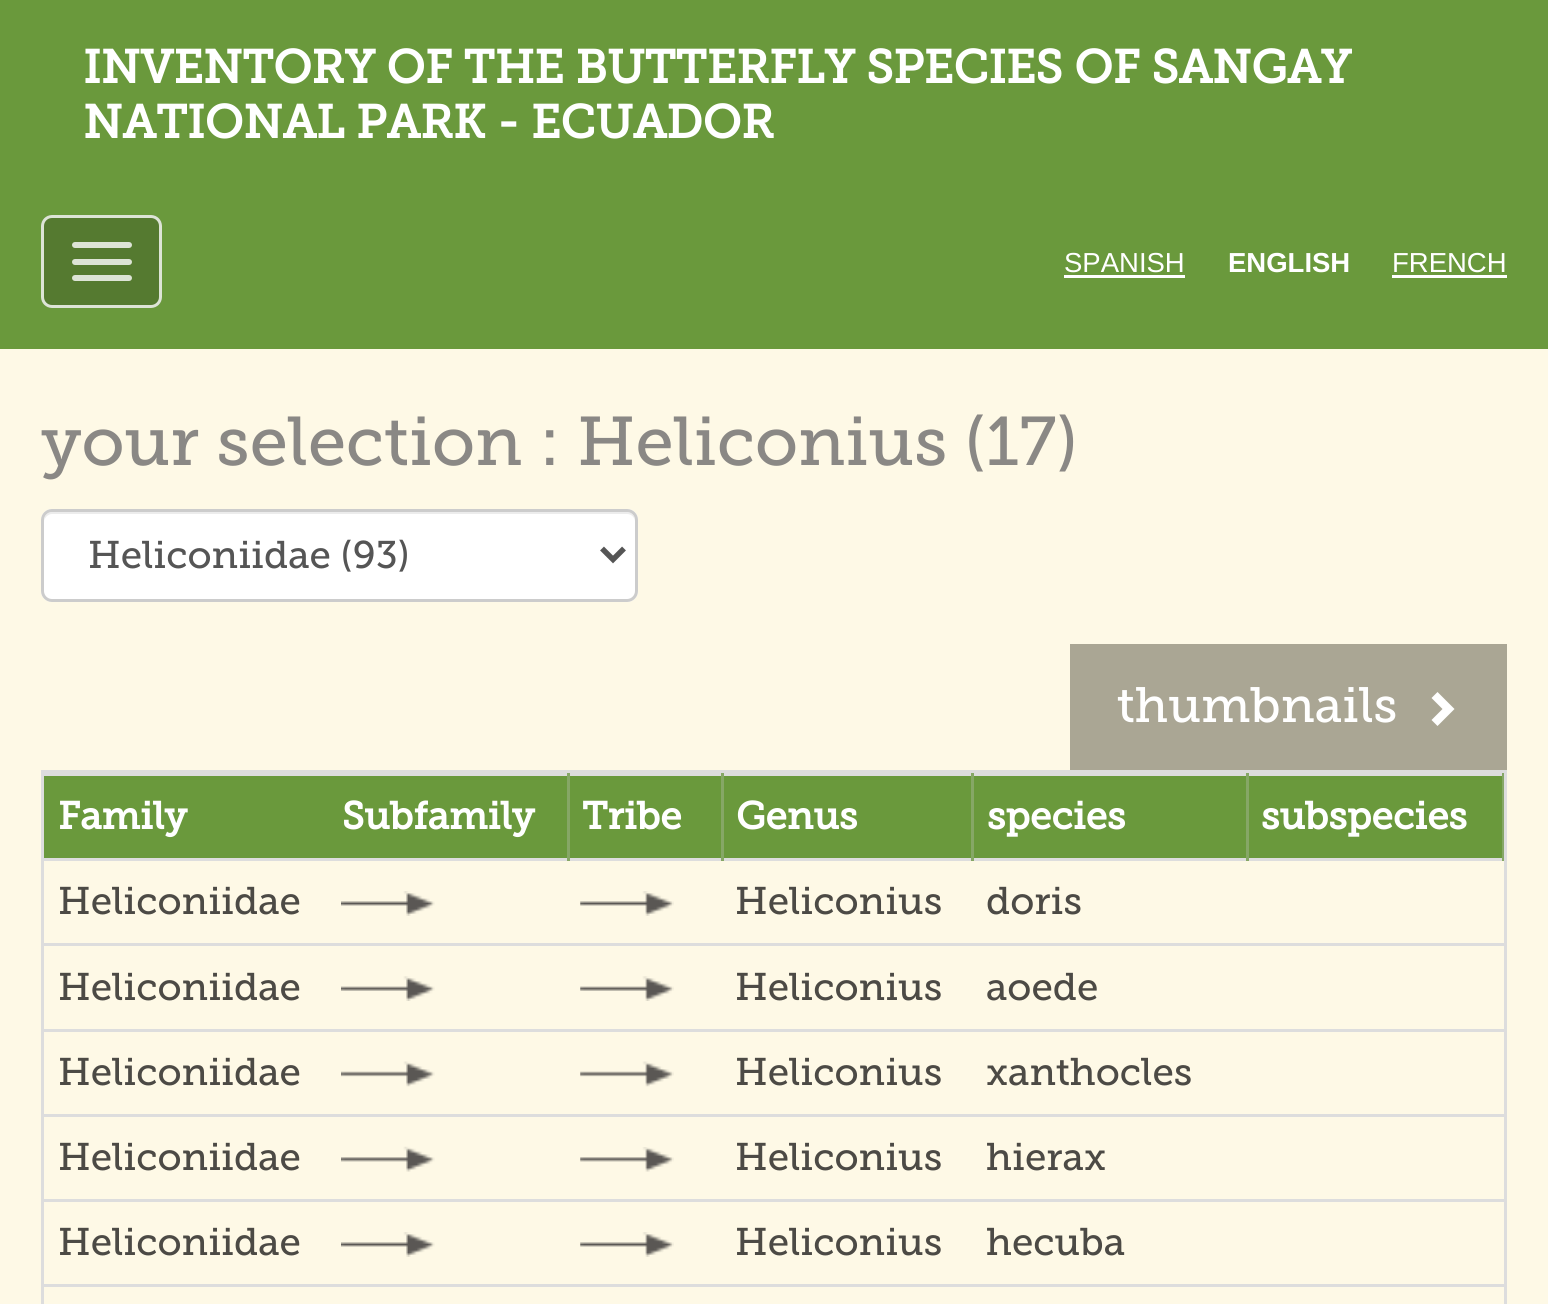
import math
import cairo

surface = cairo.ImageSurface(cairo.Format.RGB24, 1548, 1304)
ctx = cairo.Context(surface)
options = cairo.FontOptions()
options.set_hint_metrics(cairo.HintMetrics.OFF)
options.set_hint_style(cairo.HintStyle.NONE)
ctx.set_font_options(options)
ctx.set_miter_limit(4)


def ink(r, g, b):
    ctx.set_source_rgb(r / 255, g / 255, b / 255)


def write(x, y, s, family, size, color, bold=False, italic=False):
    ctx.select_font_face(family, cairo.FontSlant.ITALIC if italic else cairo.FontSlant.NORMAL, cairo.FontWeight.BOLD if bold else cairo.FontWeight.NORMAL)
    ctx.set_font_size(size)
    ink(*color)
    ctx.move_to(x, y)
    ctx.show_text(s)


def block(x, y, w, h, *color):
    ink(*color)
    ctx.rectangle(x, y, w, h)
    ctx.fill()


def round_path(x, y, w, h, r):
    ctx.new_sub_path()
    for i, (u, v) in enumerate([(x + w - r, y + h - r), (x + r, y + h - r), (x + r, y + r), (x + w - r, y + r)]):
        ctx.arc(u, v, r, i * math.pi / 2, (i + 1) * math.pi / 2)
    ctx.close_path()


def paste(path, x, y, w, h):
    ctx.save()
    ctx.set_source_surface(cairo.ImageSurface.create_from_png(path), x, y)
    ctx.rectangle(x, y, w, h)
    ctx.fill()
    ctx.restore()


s1 = dict(family="Museo Slab", size=46.75, color=(255, 255, 255), bold=True)
s2 = dict(family="Liberation Sans", size=27.5, color=(255, 255, 255))
s3 = dict(family="Liberation Sans", size=27.5, color=(255, 255, 255), bold=True)
s4 = dict(family="Museo Slab", size=68.75, color=(138, 136, 133))
s5 = dict(family="Museo Slab", size=38.5, color=(85, 85, 85))
s6 = dict(family="Museo Slab", size=49.5, color=(255, 255, 255))
s7 = dict(family="Museo Slab", size=38.5, color=(255, 255, 255), bold=True)
s8 = dict(family="Museo Slab", size=38.5, color=(76, 74, 69))

ink(106, 153, 60)
ctx.paint()
write(83, 83, "INVENTORY OF THE BUTTERFLY SPECIES OF SANGAY", **s1)
write(83, 138, "NATIONAL PARK - ECUADOR", **s1)
ink(85, 122, 48)
round_path(41, 215, 121, 93, 11)
ctx.fill()
round_path(42.5, 216.5, 118, 90, 9.5)
ctx.set_source_rgba(1, 1, 1, 0.8)
ctx.set_line_width(3)
ctx.stroke()
ink(221, 228, 214)
round_path(72, 242, 60, 6, 3)
ctx.fill()
round_path(72, 259, 60, 6, 3)
ctx.fill()
round_path(72, 275, 60, 6, 3)
ctx.fill()
write(1064, 272, "SPANISH", **s2)
block(1064, 275, 121, 3, 255, 255, 255)
write(1228, 272, "ENGLISH", **s3)
write(1392, 272, "FRENCH", **s2)
block(1392, 275, 115, 3, 255, 255, 255)
block(0, 349, 1548, 955, 254, 249, 230)
write(41, 465, "your selection : Heliconius (17)", **s4)
ink(255, 255, 255)
round_path(41, 509, 597, 93, 11)
ctx.fill()
ink(236, 236, 236)
ctx.new_path()
ctx.move_to(52, 514)
ctx.line_to(627, 514)
ctx.curve_to(632, 514, 635, 518, 635, 522)
ctx.curve_to(635, 517, 633, 512, 627, 512)
ctx.line_to(52, 512)
ctx.curve_to(46, 512, 44, 517, 44, 522)
ctx.curve_to(44, 518, 48, 514, 52, 514)
ctx.close_path()
ctx.fill()
round_path(42.5, 510.5, 594, 90, 9.5)
ink(204, 204, 204)
ctx.stroke()
ctx.new_path()
ctx.move_to(602, 548.5)
ctx.line_to(613, 559.5)
ctx.line_to(624, 548.5)
ink(85, 85, 85)
ctx.set_line_width(5.5)
ctx.stroke()
write(88, 568, "Heliconiidae (93)", **s5)
block(1070, 644, 437, 126, 170, 166, 148)
write(1117, 722, "thumbnails", **s6)
ctx.new_path()
ctx.move_to(1454.5, 709)
ctx.line_to(1437.5, 726)
ctx.line_to(1431.5, 720)
ctx.line_to(1442.5, 709)
ctx.line_to(1431.5, 698)
ctx.line_to(1437.5, 692)
ctx.close_path()
ctx.fill()
ctx.rectangle(42.5, 771.5, 1463, 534)
ink(221, 221, 221)
ctx.set_line_width(3)
ctx.stroke()
block(44, 776, 523, 82, 106, 153, 60)
write(58, 829, "Family", **s7)
block(44, 773, 1460, 3, 221, 221, 221)
block(44, 858, 1460, 3, 221, 221, 221)
block(567, 773, 3, 88, 134, 167, 102)
write(342, 829, "Subfamily", **s7)
block(570, 776, 151, 82, 106, 153, 60)
block(721, 773, 3, 88, 134, 167, 102)
write(582, 829, "Tribe", **s7)
block(724, 776, 247, 82, 106, 153, 60)
block(971, 773, 3, 88, 134, 167, 102)
write(736, 829, "Genus", **s7)
block(974, 776, 272, 82, 106, 153, 60)
block(1246, 773, 3, 88, 134, 167, 102)
write(987, 829, "species", **s7)
block(1249, 776, 253, 82, 106, 153, 60)
block(1502, 773, 2, 88, 134, 167, 102)
write(1261, 829, "subspecies", **s7)
write(58, 914, "Heliconiidae", **s8)
paste("pic1.png", 341, 891, 94, 25)
paste("pic2.png", 580, 891, 94, 25)
write(735, 914, "Heliconius", **s8)
write(986, 914, "doris", **s8)
block(44, 943, 1460, 3, 221, 221, 221)
write(58, 1000, "Heliconiidae", **s8)
paste("pic3.png", 341, 976, 94, 25)
paste("pic4.png", 580, 976, 94, 25)
write(735, 1000, "Heliconius", **s8)
write(986, 1000, "aoede", **s8)
block(44, 1029, 1460, 3, 221, 221, 221)
write(58, 1085, "Heliconiidae", **s8)
paste("pic5.png", 341, 1061, 94, 26)
paste("pic6.png", 580, 1061, 94, 26)
write(735, 1085, "Heliconius", **s8)
write(986, 1085, "xanthocles", **s8)
block(44, 1114, 1460, 3, 221, 221, 221)
write(58, 1170, "Heliconiidae", **s8)
paste("pic7.png", 341, 1146, 94, 26)
paste("pic8.png", 580, 1147, 94, 25)
write(735, 1170, "Heliconius", **s8)
write(986, 1170, "hierax", **s8)
block(44, 1199, 1460, 3, 221, 221, 221)
write(58, 1255, "Heliconiidae", **s8)
paste("pic1.png", 341, 1232, 94, 25)
paste("pic2.png", 580, 1232, 94, 25)
write(735, 1255, "Heliconius", **s8)
write(986, 1255, "hecuba", **s8)
block(44, 1284, 1460, 3, 221, 221, 221)
surface.write_to_png("screenshot.png")
